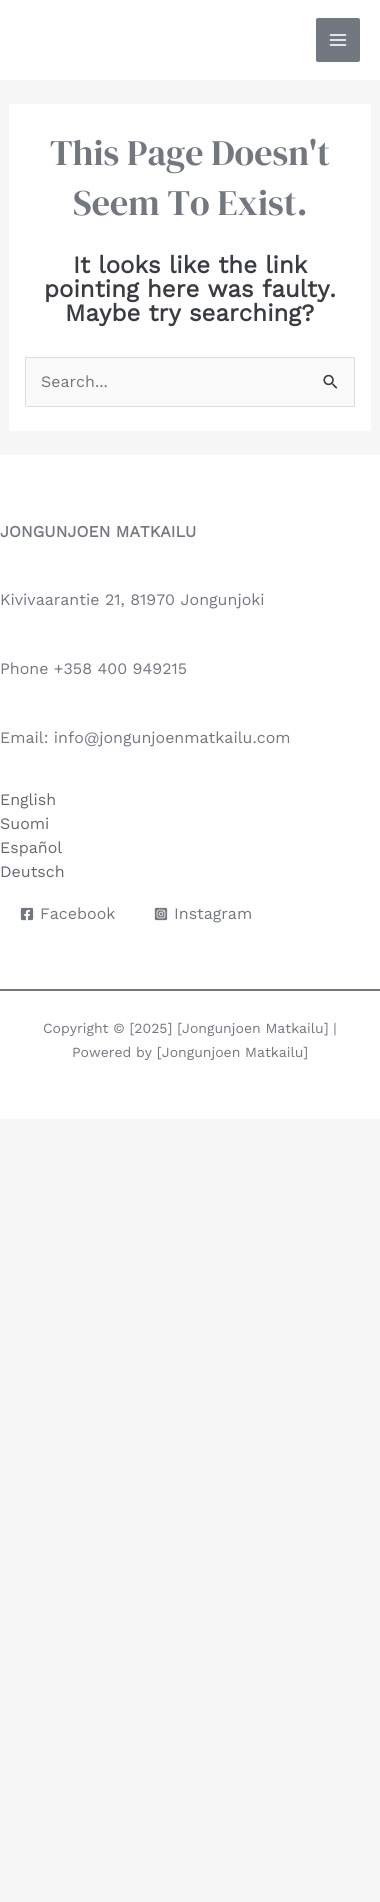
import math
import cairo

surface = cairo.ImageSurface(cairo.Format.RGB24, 380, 1902)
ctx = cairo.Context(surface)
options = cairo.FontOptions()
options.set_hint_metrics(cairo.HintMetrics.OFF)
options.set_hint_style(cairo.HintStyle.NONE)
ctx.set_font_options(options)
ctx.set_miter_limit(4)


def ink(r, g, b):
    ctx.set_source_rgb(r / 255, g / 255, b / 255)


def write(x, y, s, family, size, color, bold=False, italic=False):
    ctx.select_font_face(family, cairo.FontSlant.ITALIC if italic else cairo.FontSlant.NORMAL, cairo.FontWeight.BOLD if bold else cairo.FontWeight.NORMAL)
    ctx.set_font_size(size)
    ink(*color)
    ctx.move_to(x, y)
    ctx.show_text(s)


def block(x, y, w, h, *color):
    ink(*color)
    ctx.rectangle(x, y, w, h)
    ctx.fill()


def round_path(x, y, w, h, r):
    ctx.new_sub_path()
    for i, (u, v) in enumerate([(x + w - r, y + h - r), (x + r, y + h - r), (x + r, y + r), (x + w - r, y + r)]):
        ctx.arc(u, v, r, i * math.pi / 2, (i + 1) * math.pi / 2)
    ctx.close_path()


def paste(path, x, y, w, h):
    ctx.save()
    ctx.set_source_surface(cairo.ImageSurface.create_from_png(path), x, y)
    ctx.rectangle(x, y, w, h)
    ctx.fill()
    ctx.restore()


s1 = dict(family="DM Serif Display", size=36, color=(115, 120, 128))
s2 = dict(family="Work Sans", size=24, color=(57, 60, 64), bold=True)
s3 = dict(family="Work Sans", size=16, color=(117, 117, 117))
s4 = dict(family="Work Sans", size=16, color=(115, 120, 128), bold=True)
s5 = dict(family="Work Sans", size=16, color=(115, 120, 128))
s6 = dict(family="Work Sans", size=16, color=(101, 105, 111))
s7 = dict(family="Work Sans", size=14, color=(115, 120, 128))

ink(246, 246, 246)
ctx.paint()
block(0, 0, 380, 80, 255, 255, 255)
ink(115, 120, 128)
round_path(316, 18, 44, 44, 2)
ctx.fill()
paste("pic1.png", 329, 34, 18, 12)
block(9, 104, 362, 327, 255, 255, 255)
write(50, 165, "This Page Doesn't", **s1)
write(73, 215, "Seem To Exist.", **s1)
write(73, 273, "It looks like the link", **s2)
write(44, 297, "pointing here was faulty.", **s2)
write(65, 321, "Maybe try searching?", **s2)
ink(250, 250, 250)
round_path(25.5, 357.5, 329, 49, 1.5)
ctx.fill_preserve()
ink(221, 221, 221)
ctx.set_line_width(1)
ctx.stroke()
write(41, 387, "Search...", **s3)
paste("pic2.png", 323, 374, 15, 15)
block(0, 455, 380, 664, 255, 255, 255)
write(0, 537, "JONGUNJOEN MATKAILU", **s4)
write(0, 605, "Kivivaarantie 21, 81970 Jongunjoki", **s5)
write(0, 674, "Phone +358 400 949215", **s5)
write(0, 743, "Email: info@jongunjoenmatkailu.com", **s5)
write(0, 805, "English", **s6)
write(0, 829, "Suomi", **s6)
write(0, 853, "Español", **s6)
write(0, 877, "Deutsch", **s6)
paste("pic3.png", 20, 907, 14, 14)
write(40, 919, "Facebook", **s5)
paste("pic4.png", 154, 907, 14, 14)
write(174, 919, "Instagram", **s5)
block(0, 989, 380, 2, 115, 120, 128)
write(43, 1033, "Copyright © [2025] [Jongunjoen Matkailu] |", **s7)
write(72, 1057, "Powered by [Jongunjoen Matkailu]", **s7)
surface.write_to_png("screenshot.png")
